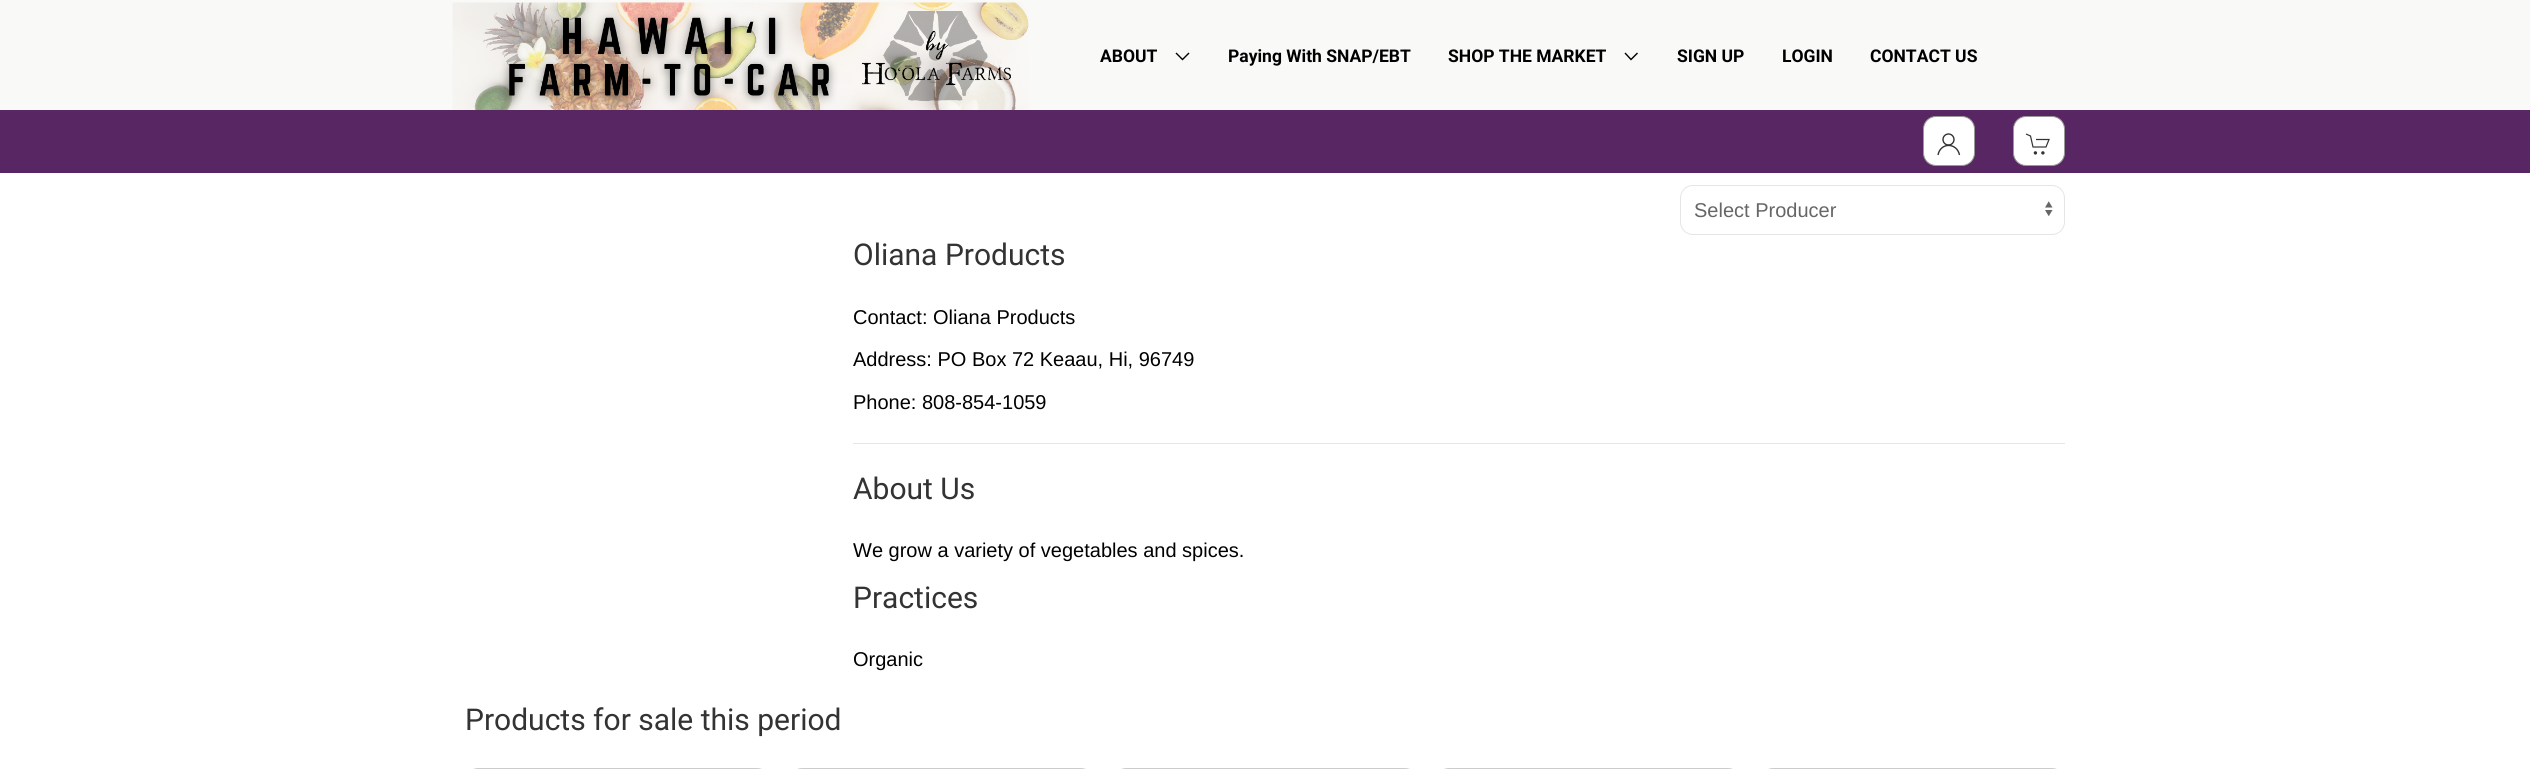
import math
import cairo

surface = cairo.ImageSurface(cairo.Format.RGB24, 2530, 769)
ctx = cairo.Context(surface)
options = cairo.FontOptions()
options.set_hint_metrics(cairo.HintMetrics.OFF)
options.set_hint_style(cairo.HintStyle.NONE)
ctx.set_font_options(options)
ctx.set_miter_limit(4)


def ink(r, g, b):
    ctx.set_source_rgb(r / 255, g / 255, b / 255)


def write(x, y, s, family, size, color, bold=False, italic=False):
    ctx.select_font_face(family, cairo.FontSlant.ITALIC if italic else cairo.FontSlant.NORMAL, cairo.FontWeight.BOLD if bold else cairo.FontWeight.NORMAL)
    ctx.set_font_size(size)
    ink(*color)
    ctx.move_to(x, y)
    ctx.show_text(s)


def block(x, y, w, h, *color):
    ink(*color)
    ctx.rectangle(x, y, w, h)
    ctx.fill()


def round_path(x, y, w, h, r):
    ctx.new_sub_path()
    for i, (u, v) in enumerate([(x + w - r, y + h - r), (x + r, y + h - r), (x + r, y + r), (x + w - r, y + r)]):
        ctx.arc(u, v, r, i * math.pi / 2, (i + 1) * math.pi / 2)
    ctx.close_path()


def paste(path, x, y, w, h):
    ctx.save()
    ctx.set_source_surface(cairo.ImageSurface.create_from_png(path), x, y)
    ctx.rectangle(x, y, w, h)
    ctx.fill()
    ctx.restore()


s1 = dict(family="Roboto", size=17.5, color=(0, 0, 0), bold=True)
s2 = dict(family="Liberation Sans", size=20, color=(102, 102, 102))
s3 = dict(family="Roboto", size=30, color=(51, 51, 51))
s4 = dict(family="Liberation Sans", size=20, color=(0, 0, 0))

ink(255, 255, 255)
ctx.paint()
block(0, 0, 2530, 110, 249, 249, 247)
paste("pic1.png", 452, 2, 577, 108)
write(1100, 62, "ABOUT", **s1)
ctx.new_path()
ctx.move_to(1176, 53)
ctx.line_to(1182.5, 59.5)
ctx.line_to(1189, 53)
ctx.set_line_width(1.4)
ctx.stroke()
write(1228, 62, "Paying With SNAP/EBT", **s1)
write(1448, 62, "SHOP THE MARKET", **s1)
ctx.new_path()
ctx.move_to(1625, 53)
ctx.line_to(1631, 59.5)
ctx.line_to(1637.5, 53)
ctx.stroke()
write(1677, 62, "SIGN UP", **s1)
write(1782, 62, "LOGIN", **s1)
write(1870, 62, "CONTACT US", **s1)
block(0, 110, 2530, 63, 88, 38, 98)
ink(255, 255, 255)
round_path(1923.5, 116.5, 51, 49, 12.5)
ctx.fill_preserve()
ink(153, 153, 153)
ctx.set_line_width(1)
ctx.stroke()
ctx.arc(1948.5, 139.5, 5.5, 0, 2 * math.pi)
ink(51, 51, 51)
ctx.set_line_width(1.4)
ctx.stroke()
ctx.new_path()
ctx.move_to(1938, 155)
ctx.curve_to(1940.5, 142, 1957, 142.5, 1959.5, 155)
ctx.stroke()
ink(255, 255, 255)
round_path(2013.5, 116.5, 51, 49, 12.5)
ctx.fill_preserve()
ink(153, 153, 153)
ctx.set_line_width(1)
ctx.stroke()
ctx.new_path()
ctx.move_to(2026, 134)
ctx.line_to(2030.5, 136)
ctx.line_to(2033, 147)
ctx.line_to(2046, 147)
ctx.line_to(2049, 139.5)
ctx.line_to(2036, 139.5)
ink(51, 51, 51)
ctx.set_line_width(1.2)
ctx.stroke()
ctx.arc(2035.4, 152.9, 1.7, 0, 2 * math.pi)
ctx.fill()
ctx.arc(2042.9, 152.9, 1.7, 0, 2 * math.pi)
ctx.fill()
paste("pic2.png", 2045, 201, 8, 16)
round_path(1680.5, 185.5, 384, 49, 12.5)
ink(229, 229, 229)
ctx.set_line_width(1)
ctx.stroke()
write(1694, 217, "Select Producer", **s2)
write(853, 265, "Oliana Products", **s3)
write(853, 324, "Contact: Oliana Products", **s4)
write(853, 366, "Address: PO Box 72 Keaau, Hi, 96749", **s4)
write(853, 409, "Phone: 808-854-1059", **s4)
block(853, 443, 1212, 1, 229, 229, 229)
write(853, 499, "About Us", **s3)
write(853, 557, "We grow a variety of vegetables and spices.", **s4)
write(853, 608, "Practices", **s3)
write(853, 666, "Organic", **s4)
write(465, 730, "Products for sale this period", **s3)
round_path(465.5, 768.5, 304, 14, 12.5)
ink(204, 204, 204)
ctx.stroke()
round_path(789.5, 768.5, 304, 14, 12.5)
ctx.stroke()
round_path(1113.5, 768.5, 304, 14, 12.5)
ctx.stroke()
round_path(1436.5, 768.5, 304, 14, 12.5)
ctx.stroke()
round_path(1760.5, 768.5, 304, 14, 12.5)
ctx.stroke()
surface.write_to_png("screenshot.png")
